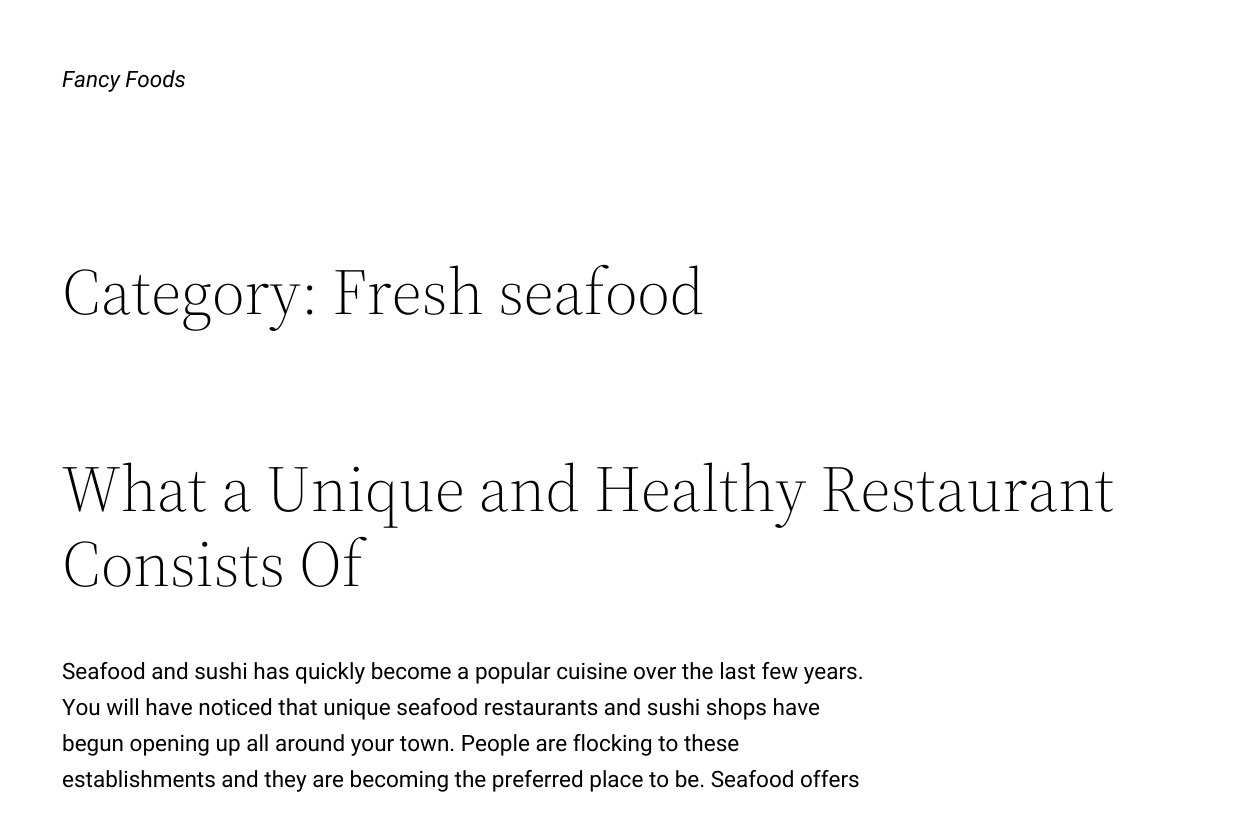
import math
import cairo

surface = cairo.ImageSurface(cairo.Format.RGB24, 1246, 818)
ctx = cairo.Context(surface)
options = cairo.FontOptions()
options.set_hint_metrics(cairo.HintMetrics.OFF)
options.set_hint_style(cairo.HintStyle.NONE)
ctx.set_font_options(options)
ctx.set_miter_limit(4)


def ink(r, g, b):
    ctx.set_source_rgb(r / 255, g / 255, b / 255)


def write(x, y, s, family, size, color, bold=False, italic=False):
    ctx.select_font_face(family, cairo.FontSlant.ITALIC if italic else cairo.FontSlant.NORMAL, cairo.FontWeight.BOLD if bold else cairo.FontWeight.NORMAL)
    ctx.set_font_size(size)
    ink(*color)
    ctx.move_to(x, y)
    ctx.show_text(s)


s1 = dict(family="Roboto", size=22.5, color=(0, 0, 0), italic=True)
s2 = dict(family="Source Serif 4 Light", size=65, color=(0, 0, 0))
s3 = dict(family="Roboto", size=22.5, color=(0, 0, 0))

ink(255, 255, 255)
ctx.paint()
write(62, 87, "Fancy Foods", **s1)
write(62, 314, "Category: Fresh seafood", **s2)
write(62, 511, "What a Unique and Healthy Restaurant", **s2)
write(62, 586, "Consists Of", **s2)
write(62, 679, "Seafood and sushi has quickly become a popular cuisine over the last few years.", **s3)
write(62, 715, "You will have noticed that unique seafood restaurants and sushi shops have", **s3)
write(62, 751, "begun opening up all around your town. People are flocking to these", **s3)
write(62, 787, "establishments and they are becoming the preferred place to be. Seafood offers", **s3)
surface.write_to_png("screenshot.png")
